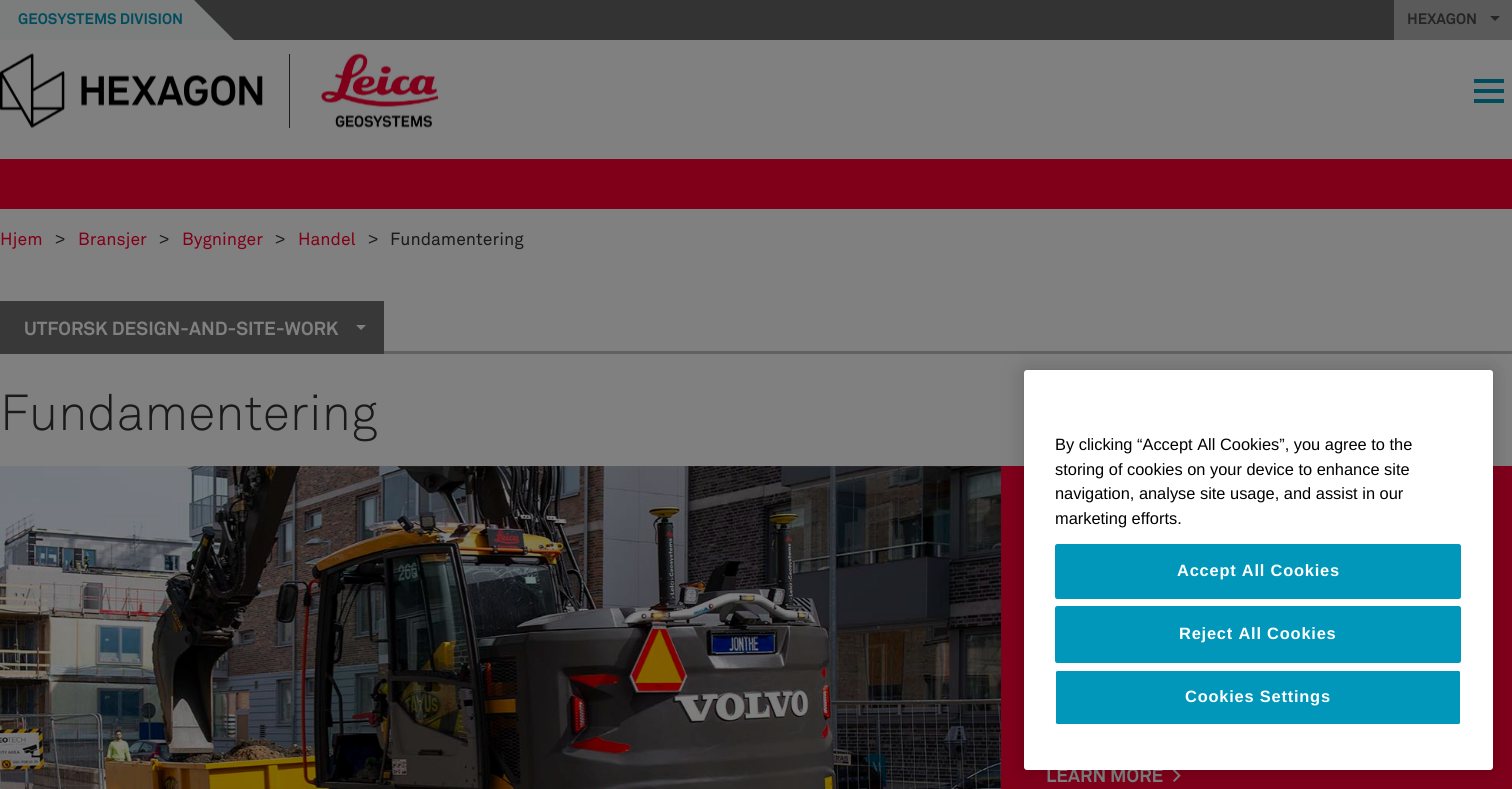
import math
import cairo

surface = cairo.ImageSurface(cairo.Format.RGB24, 1512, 789)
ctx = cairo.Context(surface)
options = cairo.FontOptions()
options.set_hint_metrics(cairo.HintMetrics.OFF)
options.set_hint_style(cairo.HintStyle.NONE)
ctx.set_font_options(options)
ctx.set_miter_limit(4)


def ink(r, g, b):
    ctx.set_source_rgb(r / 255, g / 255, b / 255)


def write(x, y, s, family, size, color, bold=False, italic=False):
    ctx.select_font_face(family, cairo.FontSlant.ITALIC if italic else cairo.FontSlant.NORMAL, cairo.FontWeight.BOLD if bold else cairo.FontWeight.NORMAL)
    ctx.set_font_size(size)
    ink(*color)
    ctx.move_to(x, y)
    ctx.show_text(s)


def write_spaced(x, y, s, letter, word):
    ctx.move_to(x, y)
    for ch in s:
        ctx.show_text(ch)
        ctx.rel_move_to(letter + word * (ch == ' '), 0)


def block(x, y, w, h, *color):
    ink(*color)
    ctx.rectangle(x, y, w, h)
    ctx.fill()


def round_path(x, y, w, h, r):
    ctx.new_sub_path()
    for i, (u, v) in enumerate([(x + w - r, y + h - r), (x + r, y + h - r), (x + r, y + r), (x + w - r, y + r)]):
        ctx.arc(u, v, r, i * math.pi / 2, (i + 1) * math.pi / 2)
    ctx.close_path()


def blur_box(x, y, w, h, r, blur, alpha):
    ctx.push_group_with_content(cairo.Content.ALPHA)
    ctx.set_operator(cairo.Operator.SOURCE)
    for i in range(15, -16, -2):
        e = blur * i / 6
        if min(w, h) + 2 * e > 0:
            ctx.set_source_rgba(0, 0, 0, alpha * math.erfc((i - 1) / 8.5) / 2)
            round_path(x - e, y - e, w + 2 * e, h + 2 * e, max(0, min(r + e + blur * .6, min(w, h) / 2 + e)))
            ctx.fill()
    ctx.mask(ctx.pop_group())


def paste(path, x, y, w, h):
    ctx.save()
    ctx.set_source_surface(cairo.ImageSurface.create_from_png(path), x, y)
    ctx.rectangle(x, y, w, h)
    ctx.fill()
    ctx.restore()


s1 = dict(family="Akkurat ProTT", size=15, color=(0, 76, 93), bold=True)
s2 = dict(family="Akkurat ProTT", size=15, color=(37, 37, 37), bold=True)
s3 = dict(family="Akkurat ProTT", size=17.5, color=(128, 0, 26))
s4 = dict(family="Liberation Sans", size=17.5, color=(26, 26, 26))
s5 = dict(family="Akkurat ProTT", size=17.5, color=(26, 26, 26))
s6 = dict(family="Akkurat ProTT", size=18.75, color=(128, 128, 128), bold=True)
s7 = dict(family="Akkurat ProTT Light", size=50, color=(26, 26, 26))
s8 = dict(family="Akkurat ProTT", size=20, color=(128, 128, 128), bold=True)
s9 = dict(family="Liberation Sans", size=16.4, color=(0, 0, 0))

ink(128, 128, 128)
ctx.paint()
block(194, 0, 1200, 40, 51, 51, 51)
block(0, 0, 194, 40, 123, 124, 124)
write(18, 24, "GEOSYSTEMS DIVISION", **s1)
ink(123, 124, 124)
ctx.new_path()
ctx.move_to(234, 40)
ctx.line_to(194, 40)
ctx.line_to(194, 0)
ctx.close_path()
ctx.fill()
block(1394, 0, 118, 40, 90, 90, 90)
write(1407, 24, "HEXAGON", **s2)
ctx.new_path()
ctx.move_to(1490, 16)
ctx.line_to(1500, 16)
ctx.line_to(1495, 21)
ctx.close_path()
ctx.fill()
block(289, 54, 1, 74, 26, 26, 26)
paste("pic1.png", 0, 53, 263, 75)
paste("pic2.png", 321, 53, 118, 75)
block(1474, 79, 30, 4, 0, 76, 93)
block(1474, 89, 30, 4, 0, 76, 93)
block(1474, 99, 30, 4, 0, 76, 93)
block(0, 159, 1512, 50, 128, 0, 26)
write(0, 245, "Hjem", **s3)
write(55, 245, ">", **s4)
write(78, 245, "Bransjer", **s3)
write(159, 245, ">", **s4)
write(182, 245, "Bygninger", **s3)
write(275, 245, ">", **s4)
write(298, 245, "Handel", **s3)
write(368, 245, ">", **s4)
write(390, 245, "Fundamentering", **s5)
block(0, 301, 384, 53, 56, 56, 56)
write(24, 335, "UTFORSK DESIGN-AND-SITE-WORK", **s6)
ctx.new_path()
ctx.move_to(356, 325)
ctx.line_to(366, 325)
ctx.line_to(361, 330)
ctx.close_path()
ctx.fill()
block(384, 351, 1128, 3, 97, 97, 97)
write(0, 430, "Fundamentering", **s7)
paste("pic3.png", 0, 466, 1001, 323)
block(1001, 466, 511, 323, 128, 0, 26)
write(1046, 782, "LEARN MORE", **s6)
write(1172, 782, ">", **s8)
ink(0, 0, 0)
blur_box(1024, 370, 469, 400, 3, 11, 0.2)
ink(255, 255, 255)
round_path(1024, 370, 469, 400, 3)
ctx.fill()
write(1055, 450, "By clicking “Accept All Cookies”, you agree to the", **s9)
write(1055, 475, "storing of cookies on your device to enhance site", **s9)
write(1055, 499, "navigation, analyse site usage, and assist in our", **s9)
write(1055, 524, "marketing efforts.", **s9)
ink(0, 151, 186)
round_path(1055.5, 544.5, 405, 54, 2)
ctx.fill_preserve()
ctx.set_line_width(1)
ctx.stroke()
ctx.select_font_face("Liberation Sans", cairo.FontSlant.NORMAL, cairo.FontWeight.BOLD)
ink(255, 255, 255)
write_spaced(1177, 576, "Accept All Cookies", 0.8, 0)
ink(0, 151, 186)
round_path(1055.5, 606.5, 405, 56, 2)
ctx.fill_preserve()
ctx.stroke()
ink(255, 255, 255)
write_spaced(1179, 639, "Reject All Cookies", 0.8, 0)
ink(0, 151, 186)
round_path(1055.5, 670.5, 405, 54, 2)
ctx.fill_preserve()
ink(255, 255, 255)
ctx.stroke()
write_spaced(1185, 702, "Cookies Settings", 0.8, 0)
surface.write_to_png("screenshot.png")
